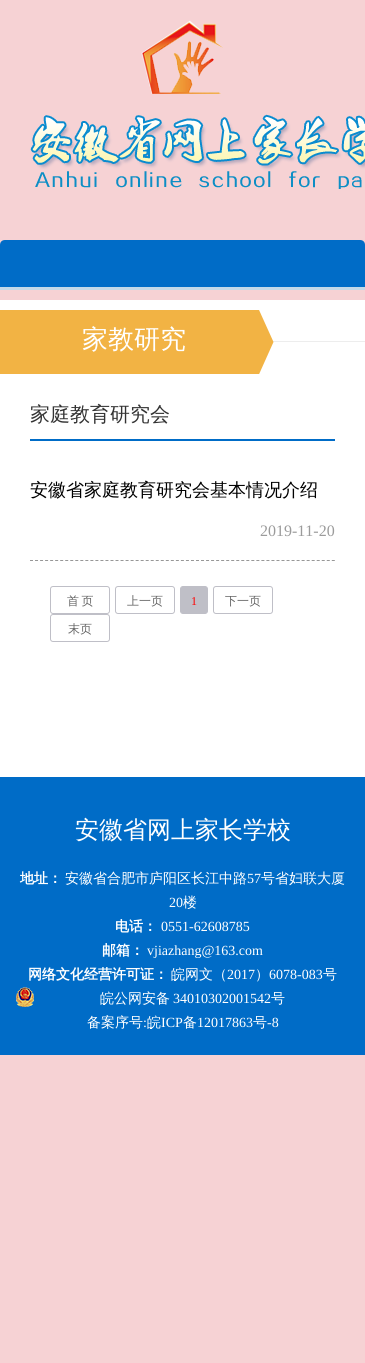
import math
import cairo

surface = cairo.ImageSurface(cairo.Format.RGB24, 365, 1363)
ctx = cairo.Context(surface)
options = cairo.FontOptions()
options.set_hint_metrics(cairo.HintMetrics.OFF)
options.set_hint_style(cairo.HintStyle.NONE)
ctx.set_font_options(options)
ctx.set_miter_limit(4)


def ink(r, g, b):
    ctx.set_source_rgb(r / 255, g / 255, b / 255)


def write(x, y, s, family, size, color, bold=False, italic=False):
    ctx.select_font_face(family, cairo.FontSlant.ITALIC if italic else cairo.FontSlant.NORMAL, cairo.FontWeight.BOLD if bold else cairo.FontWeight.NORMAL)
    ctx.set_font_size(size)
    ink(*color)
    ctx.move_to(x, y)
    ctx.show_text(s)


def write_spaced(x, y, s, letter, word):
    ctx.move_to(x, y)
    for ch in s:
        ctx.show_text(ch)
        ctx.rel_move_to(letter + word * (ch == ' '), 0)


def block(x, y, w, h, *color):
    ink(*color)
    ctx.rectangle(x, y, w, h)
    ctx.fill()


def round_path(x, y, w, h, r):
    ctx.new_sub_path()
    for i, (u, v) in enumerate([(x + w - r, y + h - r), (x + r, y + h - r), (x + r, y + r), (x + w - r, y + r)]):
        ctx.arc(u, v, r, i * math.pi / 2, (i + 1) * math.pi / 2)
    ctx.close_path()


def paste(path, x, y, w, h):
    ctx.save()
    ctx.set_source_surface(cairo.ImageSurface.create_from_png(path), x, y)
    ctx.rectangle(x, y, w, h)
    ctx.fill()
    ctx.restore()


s1 = dict(family="WenQuanYi Zen Hei Medium", size=26, color=(255, 255, 255))
s2 = dict(family="WenQuanYi Zen Hei Medium", size=20, color=(51, 51, 51))
s3 = dict(family="WenQuanYi Zen Hei Medium", size=18, color=(0, 0, 0))
s4 = dict(family="Liberation Serif", size=16, color=(155, 155, 155))
s5 = dict(family="WenQuanYi Zen Hei Medium", size=12, color=(102, 102, 102))
s6 = dict(family="Liberation Serif", size=12, color=(255, 0, 0))
s7 = dict(family="WenQuanYi Zen Hei Medium", size=24, color=(255, 255, 255))
s8 = dict(family="WenQuanYi Zen Hei", size=14, color=(255, 255, 255), bold=True)
s9 = dict(family="WenQuanYi Zen Hei Medium", size=14, color=(255, 255, 255))
s10 = dict(family="Liberation Serif", size=14, color=(255, 255, 255))

ink(246, 210, 212)
ctx.paint()
paste("pic1.png", 141, 20, 82, 74)
paste("pic2.png", 30, 114, 335, 75)
ink(0, 108, 199)
ctx.new_path()
ctx.move_to(5, 240)
ctx.line_to(360, 240)
ctx.curve_to(363, 240, 365, 242, 365, 245)
ctx.line_to(365, 290)
ctx.line_to(0, 290)
ctx.line_to(0, 245)
ctx.curve_to(0, 242, 2, 240, 5, 240)
ctx.close_path()
ctx.fill()
block(0, 287, 365, 3, 195, 217, 233)
block(0, 300, 365, 477, 255, 255, 255)
block(273, 341, 92, 1, 237, 237, 237)
paste("pic3.png", 0, 310, 274, 64)
write(82, 348, "家教研究", **s1)
block(30, 439, 305, 2, 0, 108, 199)
write(30, 421, "家庭教育研究会", **s2)
ctx.new_path()
ctx.move_to(30, 560.5)
ctx.line_to(335, 560.5)
ink(151, 151, 151)
ctx.set_line_width(1)
ctx.set_dash([3, 2.03])
ctx.stroke()
write(30, 496, "安徽省家庭教育研究会基本情况介绍", **s3)
write(260, 536, "2019-11-20", **s4)
round_path(50.5, 586.5, 59, 27, 2.5)
ink(191, 191, 199)
ctx.set_dash([])
ctx.stroke()
ctx.select_font_face("WenQuanYi Zen Hei Medium")
ctx.set_font_size(12)
ink(102, 102, 102)
write_spaced(67, 605, "首 页", 0, -1)
round_path(115.5, 586.5, 59, 27, 2.5)
ink(191, 191, 199)
ctx.stroke()
write(127, 605, "上一页", **s5)
ink(191, 191, 199)
round_path(180.5, 586.5, 27, 27, 2.5)
ctx.fill_preserve()
ctx.stroke()
write(191, 605, "1", **s6)
round_path(213.5, 586.5, 59, 27, 2.5)
ink(191, 191, 199)
ctx.stroke()
write(225, 605, "下一页", **s5)
round_path(50.5, 614.5, 59, 27, 2.5)
ink(191, 191, 199)
ctx.stroke()
write(68, 633, "末页", **s5)
block(0, 777, 365, 278, 0, 108, 199)
write(75, 838, "安徽省网上家长学校", **s7)
write(20, 883, "地址：", **s8)
write(65, 883, "安徽省合肥市庐阳区长江中路", **s9)
write(247, 883, "57", **s10)
write(261, 883, "号省妇联大厦", **s9)
write(169, 907, "20", **s10)
write(183, 907, "楼", **s9)
write(115, 931, "电话：", **s8)
write(161, 931, "0551-62608785", **s10)
write(102, 955, "邮箱：", **s8)
write(147, 955, "vjiazhang@163.com", **s10)
write(28, 979, "网络文化经营许可证：", **s8)
write(171, 979, "皖网文（", **s9)
write(227, 979, "2017", **s10)
write(255, 979, "）", **s9)
write(269, 979, "6078-083", **s10)
write(323, 979, "号", **s9)
paste("pic4.png", 16, 987, 18, 20)
write(100, 1003, "皖公网安备", **s9)
write(173, 1003, "34010302001542", **s10)
write(271, 1003, "号", **s9)
write(87, 1027, "备案序号", **s9)
write(143, 1027, ":", **s10)
write(147, 1027, "皖", **s9)
write(161, 1027, "ICP", **s10)
write(183, 1027, "备", **s9)
write(197, 1027, "12017863", **s10)
write(253, 1027, "号", **s9)
write(267, 1027, "-8", **s10)
surface.write_to_png("screenshot.png")
